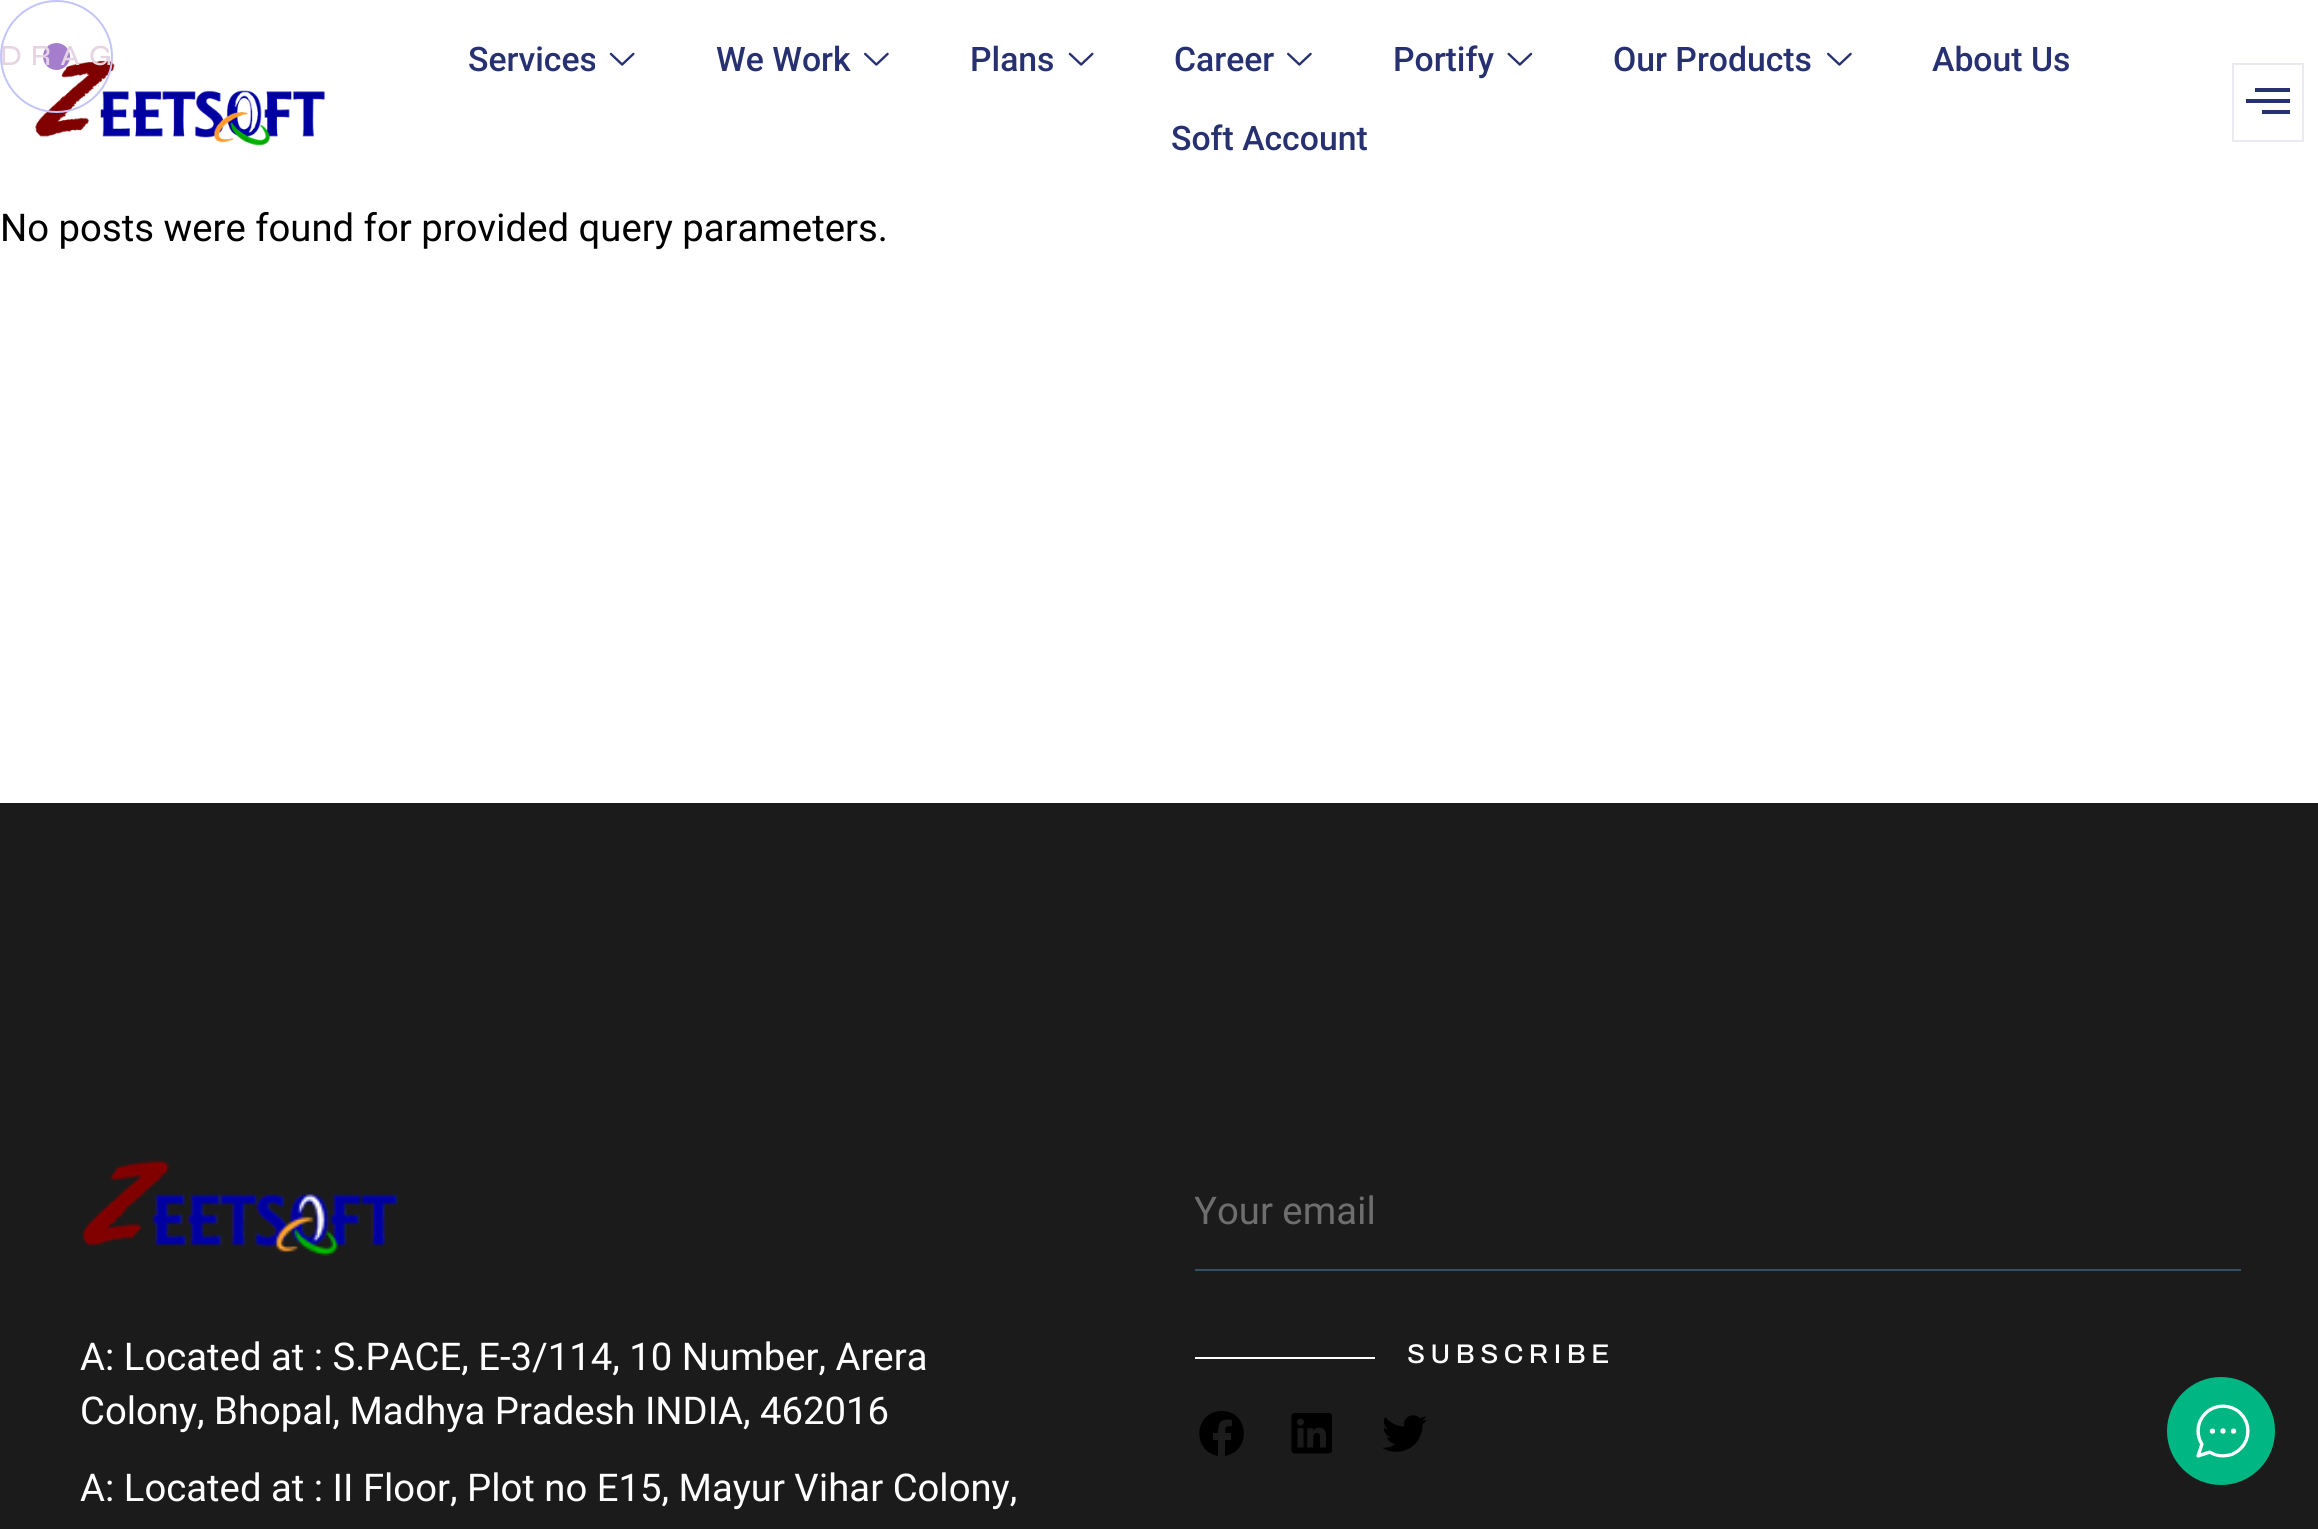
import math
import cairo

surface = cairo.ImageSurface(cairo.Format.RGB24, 2318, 1529)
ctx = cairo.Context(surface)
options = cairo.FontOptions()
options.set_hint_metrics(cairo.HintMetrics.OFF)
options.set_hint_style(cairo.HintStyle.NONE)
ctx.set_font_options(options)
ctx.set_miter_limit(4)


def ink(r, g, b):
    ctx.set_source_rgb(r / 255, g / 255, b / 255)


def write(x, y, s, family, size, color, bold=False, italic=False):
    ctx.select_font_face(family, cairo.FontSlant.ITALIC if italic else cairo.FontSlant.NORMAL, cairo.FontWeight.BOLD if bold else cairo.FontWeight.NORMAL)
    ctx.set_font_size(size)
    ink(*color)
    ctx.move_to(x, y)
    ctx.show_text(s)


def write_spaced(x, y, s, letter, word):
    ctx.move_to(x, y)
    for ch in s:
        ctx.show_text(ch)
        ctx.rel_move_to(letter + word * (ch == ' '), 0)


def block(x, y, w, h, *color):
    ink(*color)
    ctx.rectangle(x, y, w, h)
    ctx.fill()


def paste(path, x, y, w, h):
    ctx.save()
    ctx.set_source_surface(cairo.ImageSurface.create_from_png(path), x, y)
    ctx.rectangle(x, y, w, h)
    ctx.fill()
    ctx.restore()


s1 = dict(family="Roboto Medium", size=33.75, color=(39, 49, 113))
s2 = dict(family="Heebo", size=38.25, color=(0, 0, 0))
s3 = dict(family="Heebo", size=38.25, color=(110, 110, 110))
s4 = dict(family="Heebo", size=38.25, color=(255, 255, 255))

ink(255, 255, 255)
ctx.paint()
paste("pic1.png", 35, 60, 291, 86)
ink(164, 125, 205)
ctx.arc(56.5, 56.5, 13.5, 0, 2 * math.pi)
ctx.fill()
ctx.select_font_face("Syne Medium")
ctx.set_font_size(29.25)
ink(229, 212, 226)
write_spaced(0, 65, "DRAG", 9, 0)
ctx.new_path()
ctx.arc(56.5, 56.5, 55.5, 0, 2 * math.pi)
ink(195, 196, 249)
ctx.stroke()
write(468, 71, "Services", **s1)
paste("pic2.png", 609, 52, 26, 14)
write(716, 71, "We Work", **s1)
paste("pic3.png", 864, 52, 25, 14)
write(970, 71, "Plans", **s1)
paste("pic2.png", 1068, 52, 26, 14)
write(1174, 71, "Career", **s1)
paste("pic3.png", 1287, 52, 25, 14)
write(1393, 71, "Portify", **s1)
paste("pic4.png", 1507, 52, 26, 14)
write(1613, 71, "Our Products", **s1)
paste("pic3.png", 1827, 52, 25, 14)
write(1932, 71, "About Us", **s1)
write(1171, 150, "Soft Account", **s1)
ctx.rectangle(2233, 64, 70, 77)
ink(234, 235, 241)
ctx.stroke()
ink(39, 49, 113)
ctx.new_path()
ctx.move_to(2246, 103)
ctx.line_to(2290, 103)
ctx.line_to(2290, 99)
ctx.line_to(2246, 99)
ctx.close_path()
ctx.move_to(2262, 114)
ctx.line_to(2290, 114)
ctx.line_to(2290, 110)
ctx.line_to(2262, 110)
ctx.close_path()
ctx.move_to(2255, 88)
ctx.line_to(2255, 92)
ctx.line_to(2290, 92)
ctx.line_to(2290, 88)
ctx.close_path()
ctx.fill()
write(0, 241, "No posts were found for provided query parameters.", **s2)
block(0, 803, 2318, 726, 27, 27, 27)
block(1195, 1269, 1046, 2, 49, 83, 97)
ctx.save()
ctx.rectangle(1195, 1184, 1001, 56)
ctx.clip()
write(1194, 1224, "Your email", **s3)
ctx.restore()
block(1195, 1357, 180, 2, 255, 255, 255)
ctx.select_font_face("Archivo Medium")
ctx.set_font_size(27)
write_spaced(1407, 1363, "SUBSCRIBE", 5.5, 0)
ink(0, 0, 0)
ctx.new_path()
ctx.move_to(1222, 1411)
ctx.curve_to(1194, 1411, 1191, 1451, 1218, 1456)
ctx.line_to(1218, 1440)
ctx.line_to(1213, 1440)
ctx.line_to(1213, 1433)
ctx.line_to(1218, 1433)
ctx.curve_to(1218, 1423, 1220, 1418, 1232, 1420)
ctx.line_to(1232, 1426)
ctx.curve_to(1225, 1426, 1225, 1427, 1225, 1433)
ctx.line_to(1231, 1433)
ctx.line_to(1231, 1440)
ctx.line_to(1225, 1440)
ctx.line_to(1225, 1456)
ctx.curve_to(1252, 1451, 1249, 1411, 1222, 1411)
ctx.close_path()
ctx.fill()
paste("pic5.png", 1291, 1413, 41, 41)
paste("pic6.png", 1382, 1415, 45, 37)
paste("pic7.png", 81, 1160, 318, 96)
write(80, 1370, "A: Located at : S.PACE, E-3/114, 10 Number, Arera", **s4)
write(80, 1424, "Colony, Bhopal, Madhya Pradesh INDIA, 462016", **s4)
write(80, 1501, "A: Located at : II Floor, Plot no E15, Mayur Vihar Colony,", **s4)
ink(0, 182, 130)
ctx.new_path()
ctx.arc(2221, 1431, 54, 0, 2 * math.pi)
ctx.fill()
paste("pic8.png", 2196, 1404, 54, 54)
surface.write_to_png("screenshot.png")
